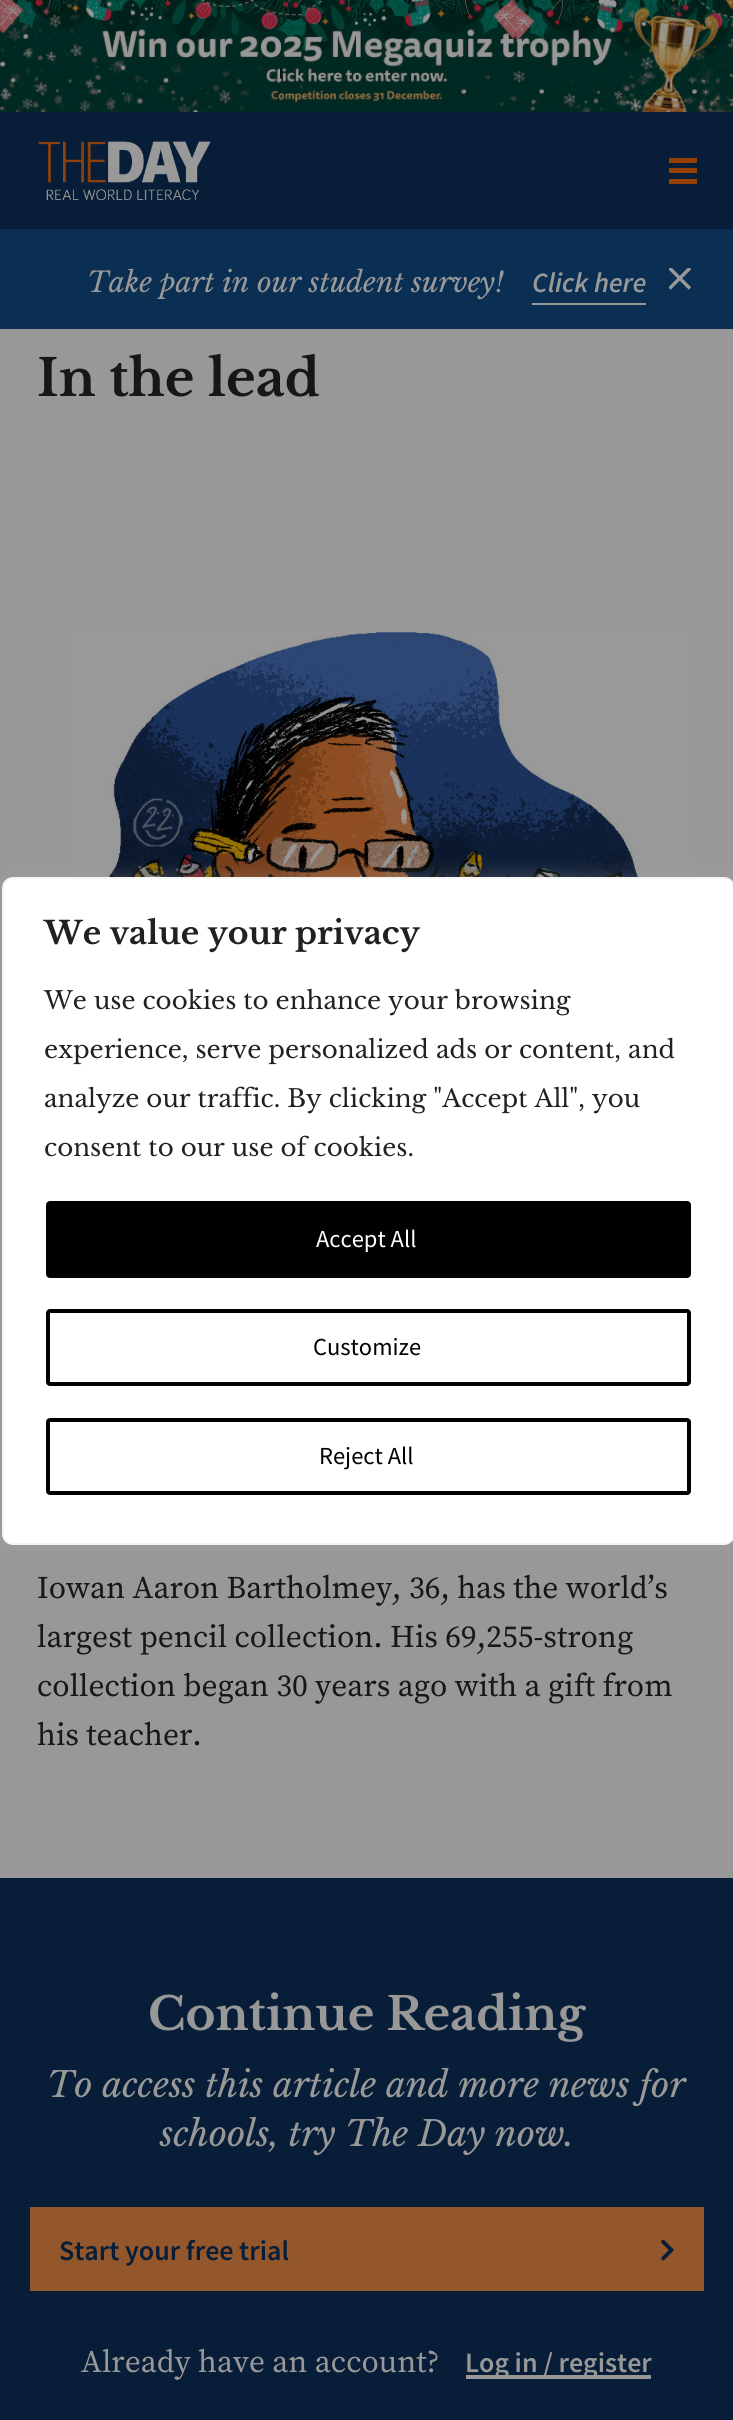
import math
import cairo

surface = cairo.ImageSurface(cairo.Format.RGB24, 733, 2420)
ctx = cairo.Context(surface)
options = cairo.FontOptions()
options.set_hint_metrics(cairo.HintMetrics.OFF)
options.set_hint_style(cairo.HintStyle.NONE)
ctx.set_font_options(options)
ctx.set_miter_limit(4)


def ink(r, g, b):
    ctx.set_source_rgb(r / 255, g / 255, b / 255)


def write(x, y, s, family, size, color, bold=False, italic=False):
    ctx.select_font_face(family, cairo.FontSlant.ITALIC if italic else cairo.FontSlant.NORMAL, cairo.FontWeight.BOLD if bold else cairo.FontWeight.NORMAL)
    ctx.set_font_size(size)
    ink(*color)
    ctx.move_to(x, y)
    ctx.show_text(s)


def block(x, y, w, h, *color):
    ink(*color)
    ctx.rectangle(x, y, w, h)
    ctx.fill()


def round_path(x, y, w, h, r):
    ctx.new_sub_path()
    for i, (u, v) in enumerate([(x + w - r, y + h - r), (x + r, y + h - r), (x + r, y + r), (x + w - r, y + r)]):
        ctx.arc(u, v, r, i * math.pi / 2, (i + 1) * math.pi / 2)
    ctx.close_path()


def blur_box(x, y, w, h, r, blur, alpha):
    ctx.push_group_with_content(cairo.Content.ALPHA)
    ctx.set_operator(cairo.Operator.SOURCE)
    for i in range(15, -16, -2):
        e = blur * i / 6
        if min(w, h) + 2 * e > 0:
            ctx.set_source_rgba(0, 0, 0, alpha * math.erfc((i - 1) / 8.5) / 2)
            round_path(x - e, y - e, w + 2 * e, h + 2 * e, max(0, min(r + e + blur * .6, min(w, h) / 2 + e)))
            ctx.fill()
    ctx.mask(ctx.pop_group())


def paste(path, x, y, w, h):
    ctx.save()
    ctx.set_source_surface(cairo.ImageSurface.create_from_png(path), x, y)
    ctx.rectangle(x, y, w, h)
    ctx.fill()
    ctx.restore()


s1 = dict(family="Libre Baskerville", size=28, color=(152, 152, 152), italic=True)
s2 = dict(family="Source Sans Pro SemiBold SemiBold", size=28, color=(152, 152, 152), italic=True)
s3 = dict(family="Libre Baskerville", size=50.75, color=(23, 23, 23), bold=True)
s4 = dict(family="Source Serif Pro", size=31.5, color=(23, 23, 23))
s5 = dict(family="Libre Baskerville", size=45.5, color=(152, 152, 152), bold=True)
s6 = dict(family="Libre Baskerville", size=35, color=(152, 152, 152), italic=True)
s7 = dict(family="Source Sans Pro SemiBold SemiBold", size=28, color=(8, 29, 55))
s8 = dict(family="Source Serif Pro", size=31.5, color=(152, 152, 152))
s9 = dict(family="Source Sans Pro SemiBold SemiBold", size=28, color=(152, 152, 152))
s10 = dict(family="Libre Baskerville", size=31.5, color=(33, 33, 33), bold=True)
s11 = dict(family="Libre Baskerville", size=24.5, color=(33, 33, 33))
s12 = dict(family="Source Sans Pro", size=24.5, color=(255, 255, 255))
s13 = dict(family="Source Sans Pro", size=24.5, color=(0, 0, 0))

ink(152, 152, 152)
ctx.paint()
block(0, 0, 733, 229, 8, 29, 55)
paste("pic1.png", 0, 0, 733, 112)
paste("pic2.png", 38, 141, 173, 60)
block(669, 168, 28, 5, 148, 64, 1)
block(669, 158, 28, 5, 148, 64, 1)
block(669, 179, 28, 5, 148, 64, 1)
block(0, 229, 733, 100, 10, 47, 83)
write(87, 292, "Take part in our student survey!", **s1)
block(532, 303, 114, 2, 152, 152, 152)
write(532, 292, "Click here", **s2)
ctx.save()
ctx.rectangle(669, 268, 22, 23)
ctx.clip()
ctx.new_path()
ctx.move_to(669.5, 268)
ctx.line_to(690, 288.5)
ctx.move_to(690, 268)
ctx.line_to(669.5, 288.5)
ink(153, 153, 153)
ctx.set_line_width(3.4)
ctx.stroke()
ctx.restore()
write(37, 396, "In the lead", **s3)
paste("pic3.png", 70, 631, 624, 246)
write(37, 1598, "Iowan Aaron Bartholmey, 36, has the world’s", **s4)
write(37, 1647, "largest pencil collection. His 69,255-strong", **s4)
write(37, 1696, "collection began 30 years ago with a gift from", **s4)
write(37, 1745, "his teacher.", **s4)
block(0, 1878, 733, 542, 8, 29, 55)
write(148, 2030, "Continue Reading", **s5)
write(47, 2097, "To access this article and more news for", **s6)
write(160, 2146, "schools, try The Day now.", **s6)
block(30, 2207, 674, 84, 147, 87, 43)
write(59, 2260, "Start your free trial", **s7)
paste("pic4.png", 661, 2239, 13, 22)
write(81, 2372, "Already have an account?", **s8)
block(466, 2375, 185, 4, 152, 152, 152)
write(465, 2372, "Log in / register", **s9)
ctx.save()
ctx.set_fill_rule(cairo.FillRule.EVEN_ODD)
ctx.new_path()
ctx.move_to(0, 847)
ctx.line_to(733, 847)
ctx.line_to(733, 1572)
ctx.line_to(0, 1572)
ctx.close_path()
ctx.move_to(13, 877)
ctx.line_to(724, 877)
ctx.curve_to(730, 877, 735, 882, 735, 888)
ctx.line_to(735, 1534)
ctx.curve_to(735, 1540, 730, 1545, 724, 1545)
ctx.line_to(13, 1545)
ctx.curve_to(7, 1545, 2, 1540, 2, 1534)
ctx.line_to(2, 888)
ctx.curve_to(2, 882, 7, 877, 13, 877)
ctx.close_path()
ctx.clip()
ink(172, 171, 171)
blur_box(2, 875, 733, 669, 11, 9, 0.3)
ctx.restore()
ink(255, 255, 255)
round_path(3, 878, 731, 666, 10)
ctx.fill_preserve()
ink(244, 244, 244)
ctx.stroke()
write(44, 944, "We value your privacy", **s10)
write(44, 1009, "We use cookies to enhance your browsing", **s11)
write(44, 1058, "experience, serve personalized ads or content, and", **s11)
write(44, 1107, "analyze our traffic. By clicking \"Accept All\", you", **s11)
write(44, 1156, "consent to our use of cookies.", **s11)
ink(0, 0, 0)
round_path(48, 1203, 641, 73, 2)
ctx.fill_preserve()
ctx.set_line_width(4)
ctx.stroke()
write(316, 1247, "Accept All", **s12)
round_path(48, 1311, 641, 73, 2)
ink(0, 0, 0)
ctx.stroke()
write(313, 1355, "Customize", **s13)
round_path(48, 1420, 641, 73, 2)
ctx.stroke()
write(319, 1464, "Reject All", **s13)
surface.write_to_png("screenshot.png")
